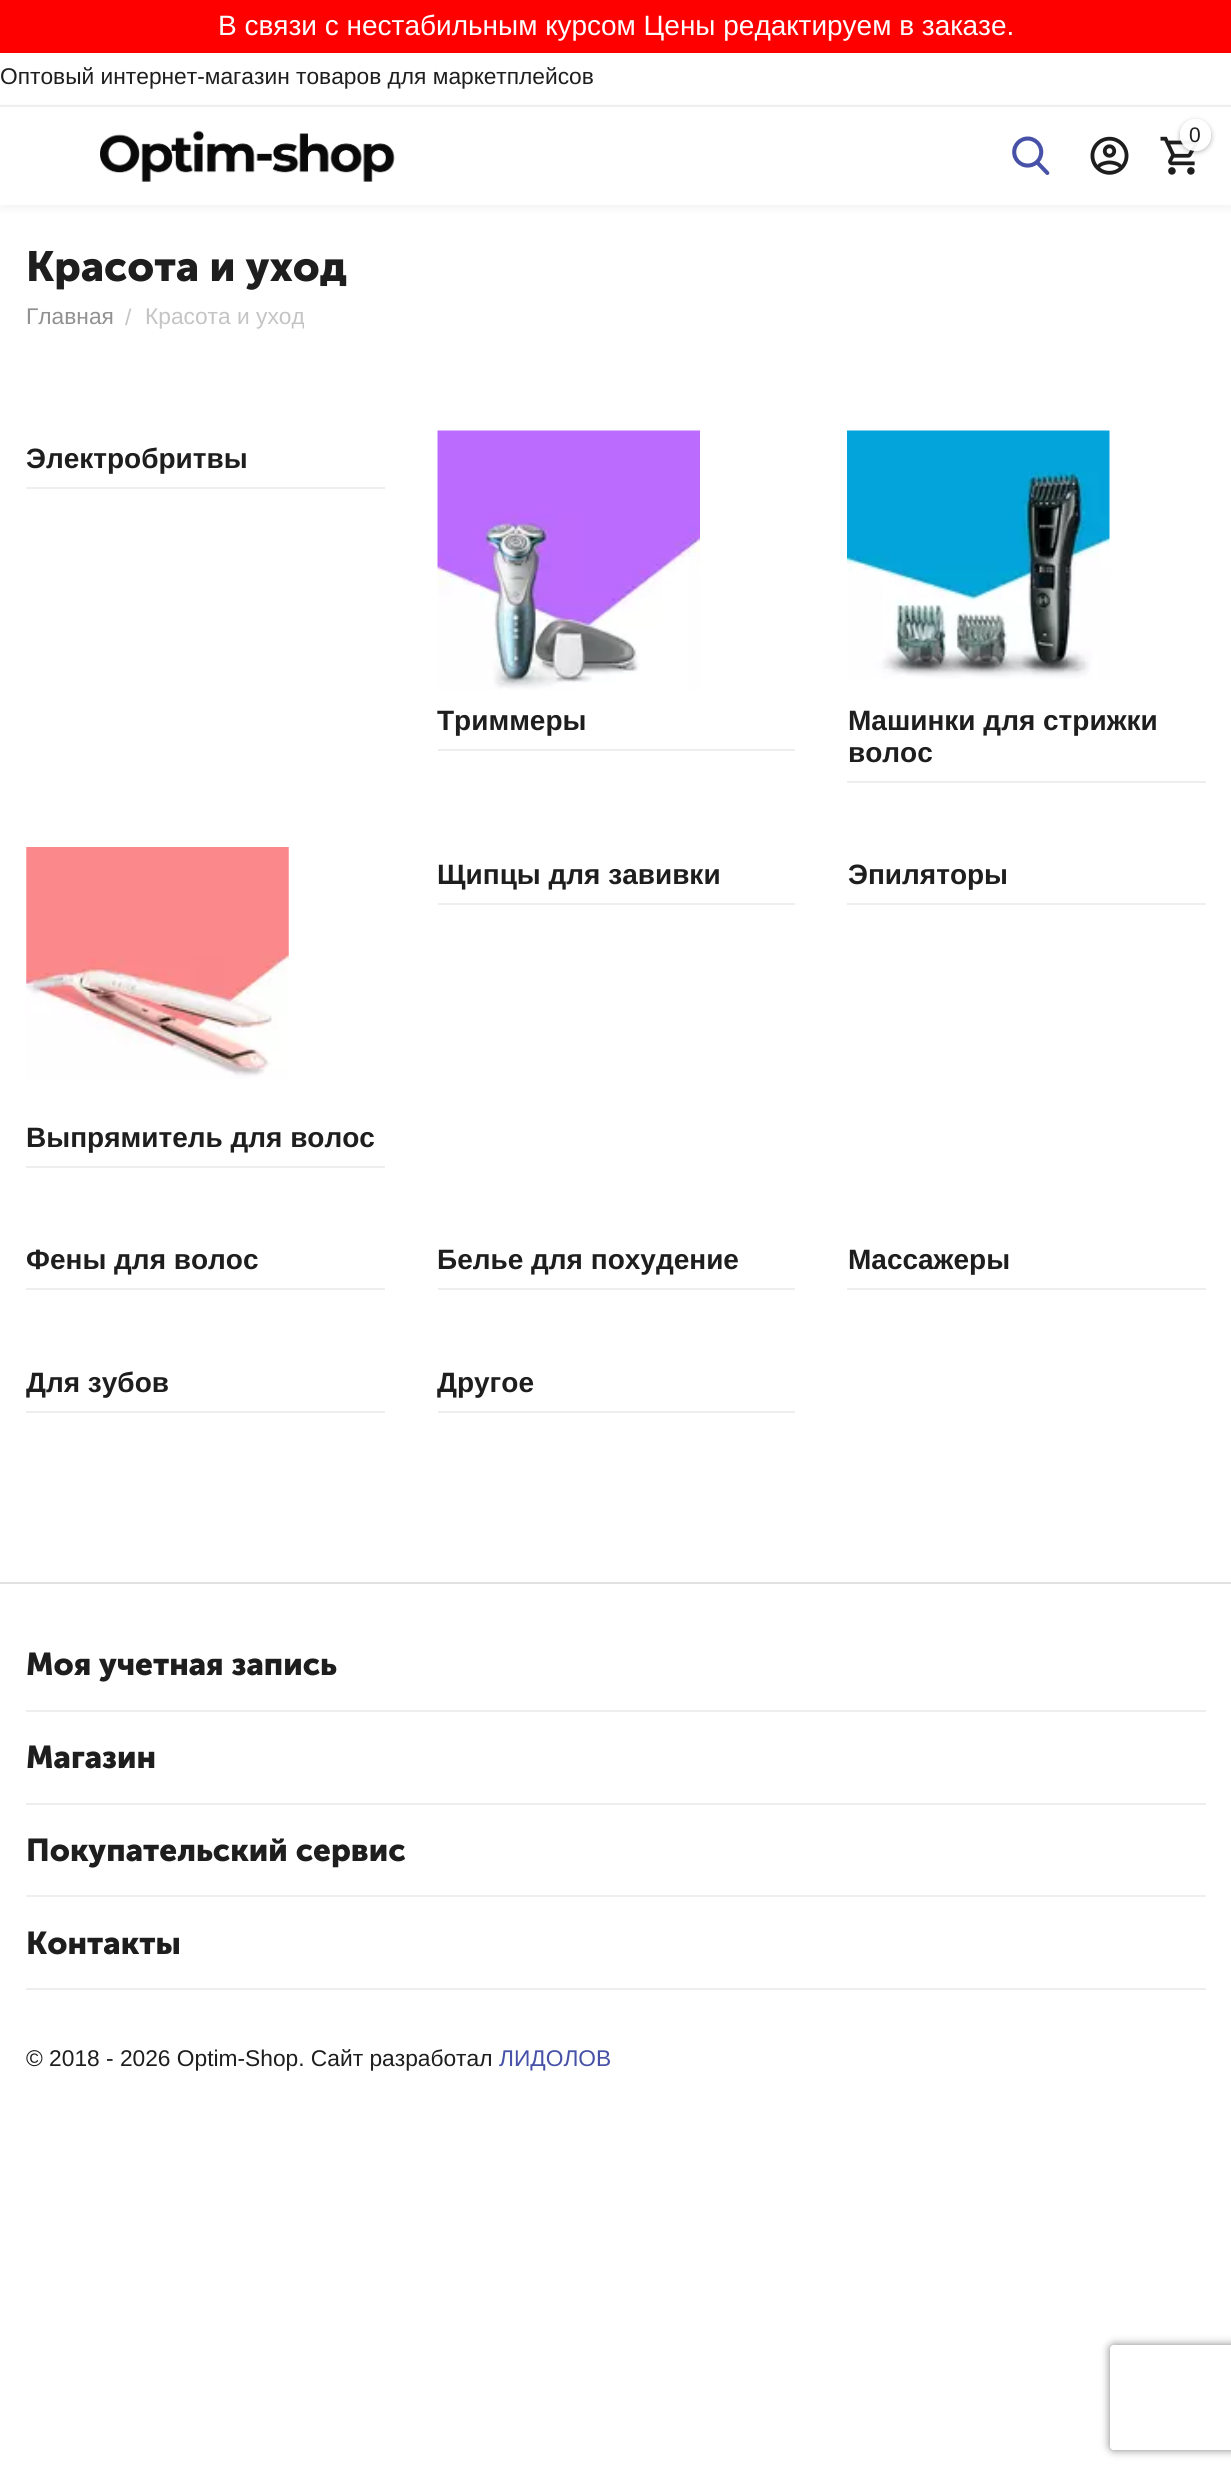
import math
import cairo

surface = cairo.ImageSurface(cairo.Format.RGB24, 1231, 2473)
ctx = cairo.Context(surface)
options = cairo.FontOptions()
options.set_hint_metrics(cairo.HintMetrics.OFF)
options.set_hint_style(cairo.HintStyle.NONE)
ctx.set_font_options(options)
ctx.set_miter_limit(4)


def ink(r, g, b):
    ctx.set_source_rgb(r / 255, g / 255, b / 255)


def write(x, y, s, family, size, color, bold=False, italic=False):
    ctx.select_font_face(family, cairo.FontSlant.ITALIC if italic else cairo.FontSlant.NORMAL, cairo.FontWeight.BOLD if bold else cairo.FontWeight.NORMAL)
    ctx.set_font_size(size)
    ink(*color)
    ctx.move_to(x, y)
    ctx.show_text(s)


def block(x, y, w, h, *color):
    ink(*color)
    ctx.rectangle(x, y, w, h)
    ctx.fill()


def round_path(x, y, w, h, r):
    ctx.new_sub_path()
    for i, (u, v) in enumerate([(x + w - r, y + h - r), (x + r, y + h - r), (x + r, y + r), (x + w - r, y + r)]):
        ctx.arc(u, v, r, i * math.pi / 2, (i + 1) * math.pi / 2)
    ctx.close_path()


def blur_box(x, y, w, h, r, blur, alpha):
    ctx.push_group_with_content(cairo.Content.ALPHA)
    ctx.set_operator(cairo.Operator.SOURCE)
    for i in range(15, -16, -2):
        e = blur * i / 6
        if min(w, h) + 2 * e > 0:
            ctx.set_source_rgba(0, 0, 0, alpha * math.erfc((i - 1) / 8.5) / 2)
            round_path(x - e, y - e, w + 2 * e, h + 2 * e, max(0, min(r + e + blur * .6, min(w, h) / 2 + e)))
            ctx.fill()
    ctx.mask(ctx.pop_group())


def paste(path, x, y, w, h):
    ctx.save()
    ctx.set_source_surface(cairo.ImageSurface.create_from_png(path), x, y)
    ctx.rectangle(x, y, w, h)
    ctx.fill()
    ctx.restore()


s1 = dict(family="Liberation Sans", size=28, color=(255, 255, 255))
s2 = dict(family="Liberation Sans", size=22.75, color=(30, 30, 30))
s3 = dict(family="Liberation Sans", size=21, color=(30, 30, 30))
s4 = dict(family="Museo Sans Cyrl", size=42, color=(30, 30, 30), bold=True)
s5 = dict(family="Liberation Sans", size=22.75, color=(145, 145, 145))
s6 = dict(family="Liberation Sans", size=22.75, color=(196, 196, 196))
s7 = dict(family="Liberation Sans", size=28, color=(30, 30, 30), bold=True)
s8 = dict(family="Museo Sans Cyrl", size=31.5, color=(30, 30, 30), bold=True)
s9 = dict(family="Liberation Sans", size=22.75, color=(70, 81, 167))

ink(255, 255, 255)
ctx.paint()
block(0, 105, 1231, 2, 246, 246, 246)
block(0, 0, 1231, 53, 255, 0, 0)
write(218, 35, "В связи с нестабильным курсом Цены редактируем в заказе.", **s1)
write(0, 84, "Оптовый интернет-магазин товаров для маркетплейсов", **s2)
ink(0, 0, 0)
blur_box(0, 112, 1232, 98, 0, 3.5, 0.04)
blur_box(0, 105, 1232, 98, 0, 2, 0.04)
block(0, 107, 1231, 98, 255, 255, 255)
paste("pic1.png", 100, 130, 295, 52)
paste("pic2.png", 1012, 136, 38, 39)
paste("pic3.png", 1090, 136, 39, 39)
paste("pic4.png", 1160, 136, 39, 39)
ctx.save()
ctx.set_fill_rule(cairo.FillRule.EVEN_ODD)
ctx.new_path()
ctx.move_to(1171, 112)
ctx.line_to(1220, 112)
ctx.line_to(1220, 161)
ctx.line_to(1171, 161)
ctx.close_path()
ctx.move_to(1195.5, 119)
ctx.curve_to(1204, 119, 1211, 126, 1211, 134.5)
ctx.line_to(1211, 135.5)
ctx.curve_to(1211, 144, 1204, 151, 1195.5, 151)
ctx.curve_to(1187, 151, 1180, 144, 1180, 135.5)
ctx.line_to(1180, 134.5)
ctx.curve_to(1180, 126, 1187, 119, 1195.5, 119)
ctx.close_path()
ctx.clip()
ink(30, 30, 30)
blur_box(1180, 121, 31, 31, 15.5, 2.5, 0.35)
ctx.restore()
ctx.set_source_rgba(1, 1, 1, 0.95)
round_path(1180, 119, 31, 32, 15.5)
ctx.fill()
write(1189, 142, "0", **s3)
write(26, 281, "Красота и уход", **s4)
write(26, 324, "Главная", **s5)
write(125, 325, "/", **s6)
write(145, 324, "Красота и уход", **s6)
block(26, 487, 359, 2, 238, 238, 238)
write(26, 468, "Электробритвы", **s7)
paste("pic5.png", 437, 430, 263, 260)
block(438, 749, 357, 2, 238, 238, 238)
write(437, 730, "Триммеры", **s7)
paste("pic6.png", 847, 430, 263, 249)
block(847, 781, 359, 2, 238, 238, 238)
write(848, 730, "Машинки для стрижки", **s7)
write(848, 762, "волос", **s7)
block(438, 903, 357, 2, 238, 238, 238)
write(437, 884, "Щипцы для завивки", **s7)
block(847, 903, 359, 2, 238, 238, 238)
write(848, 884, "Эпиляторы", **s7)
paste("pic7.png", 26, 847, 263, 232)
block(26, 1166, 359, 2, 238, 238, 238)
write(26, 1147, "Выпрямитель для волос", **s7)
block(26, 1288, 359, 2, 238, 238, 238)
write(26, 1269, "Фены для волос", **s7)
block(438, 1288, 357, 2, 238, 238, 238)
write(437, 1269, "Белье для похудение", **s7)
block(847, 1288, 359, 2, 238, 238, 238)
write(848, 1269, "Массажеры", **s7)
block(26, 1411, 359, 2, 238, 238, 238)
write(26, 1392, "Для зубов", **s7)
block(438, 1411, 357, 2, 238, 238, 238)
write(437, 1392, "Другое", **s7)
block(0, 1582, 1231, 2, 225, 225, 225)
block(26, 1710, 1180, 2, 238, 238, 238)
write(26, 1675, "Моя учетная запись", **s8)
block(26, 1803, 1180, 2, 238, 238, 238)
write(26, 1768, "Магазин", **s8)
block(26, 1895, 1180, 2, 238, 238, 238)
write(26, 1861, "Покупательский сервис", **s8)
block(26, 1988, 1180, 2, 238, 238, 238)
write(26, 1954, "Контакты", **s8)
write(26, 2066, "© 2018 - 2026 Optim-Shop. Сайт разработал", **s2)
write(499, 2066, "ЛИДОЛОВ", **s9)
ctx.save()
ctx.set_fill_rule(cairo.FillRule.EVEN_ODD)
ctx.new_path()
ctx.move_to(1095, 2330)
ctx.line_to(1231, 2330)
ctx.line_to(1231, 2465)
ctx.line_to(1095, 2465)
ctx.close_path()
ctx.move_to(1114, 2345)
ctx.line_to(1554, 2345)
ctx.curve_to(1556, 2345, 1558, 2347, 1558, 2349)
ctx.line_to(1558, 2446)
ctx.curve_to(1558, 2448, 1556, 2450, 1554, 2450)
ctx.line_to(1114, 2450)
ctx.curve_to(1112, 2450, 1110, 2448, 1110, 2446)
ctx.line_to(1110, 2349)
ctx.curve_to(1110, 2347, 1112, 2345, 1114, 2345)
ctx.close_path()
ctx.clip()
ink(128, 128, 128)
blur_box(1110, 2345, 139, 105, 4, 4.5, 1)
ctx.restore()
surface.write_to_png("screenshot.png")
